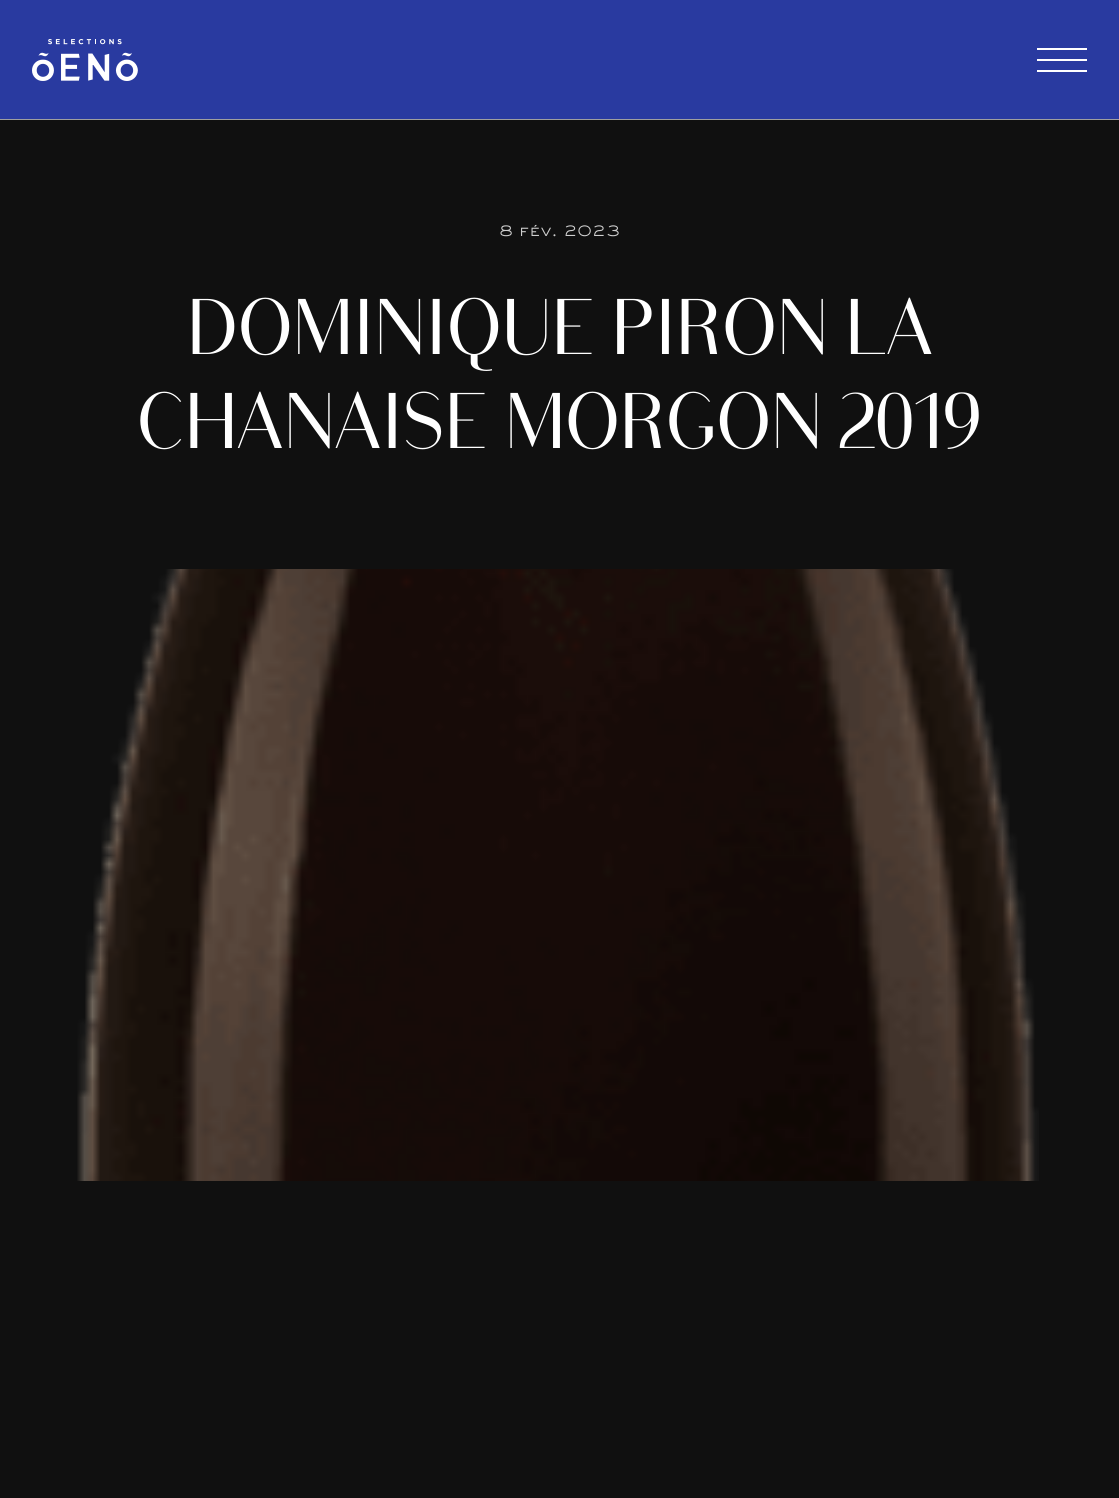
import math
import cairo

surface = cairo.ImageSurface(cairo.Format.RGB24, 1119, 1498)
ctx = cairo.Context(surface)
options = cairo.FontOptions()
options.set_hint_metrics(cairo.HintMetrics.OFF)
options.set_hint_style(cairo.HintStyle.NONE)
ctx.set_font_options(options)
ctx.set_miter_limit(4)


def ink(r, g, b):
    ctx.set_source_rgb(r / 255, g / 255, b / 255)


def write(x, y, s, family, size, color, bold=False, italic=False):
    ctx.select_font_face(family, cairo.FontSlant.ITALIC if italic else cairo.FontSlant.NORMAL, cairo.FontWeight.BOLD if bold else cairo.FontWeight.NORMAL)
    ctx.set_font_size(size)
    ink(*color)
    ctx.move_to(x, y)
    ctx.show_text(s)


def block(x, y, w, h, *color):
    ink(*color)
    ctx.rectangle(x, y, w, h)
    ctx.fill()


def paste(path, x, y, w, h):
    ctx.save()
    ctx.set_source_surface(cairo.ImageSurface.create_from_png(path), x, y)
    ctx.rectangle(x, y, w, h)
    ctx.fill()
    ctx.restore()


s1 = dict(family="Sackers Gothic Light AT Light", size=16, color=(207, 207, 207))
s2 = dict(family="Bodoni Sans", size=78.25, color=(255, 255, 255))

ink(16, 16, 16)
ctx.paint()
block(0, 119, 1119, 1, 159, 159, 159)
block(0, 0, 1119, 119, 41, 58, 160)
paste("pic1.png", 32, 39, 106, 42)
block(1037, 48, 50, 2, 255, 255, 255)
block(1037, 59, 50, 2, 255, 255, 255)
block(1037, 70, 50, 2, 255, 255, 255)
write(499, 236, "8 fév. 2023", **s1)
write(186, 354, "DOMINIQUE PIRON LA", **s2)
write(136, 448, "CHANAISE MORGON 2019", **s2)
paste("pic2.png", 77, 569, 962, 612)
surface.write_to_png("screenshot.png")
